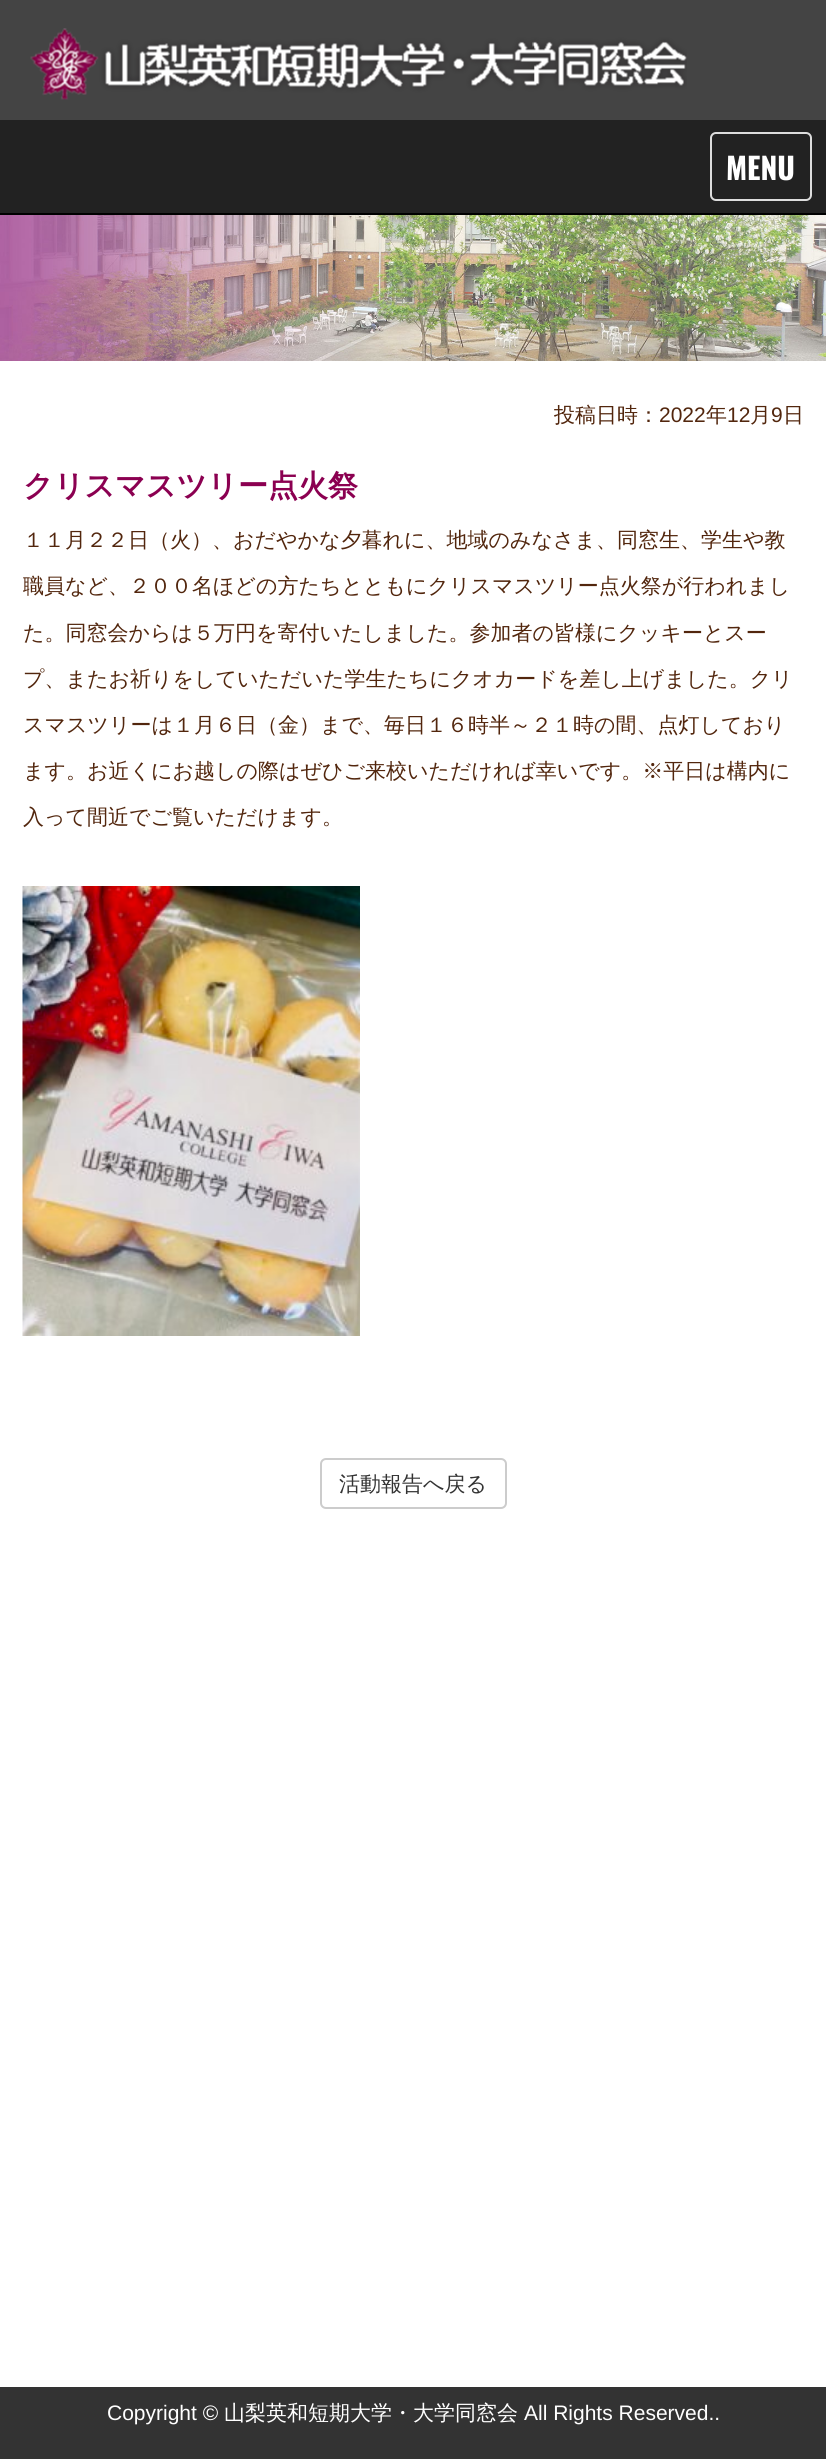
import math
import cairo

surface = cairo.ImageSurface(cairo.Format.RGB24, 826, 2459)
ctx = cairo.Context(surface)
options = cairo.FontOptions()
options.set_hint_metrics(cairo.HintMetrics.OFF)
options.set_hint_style(cairo.HintStyle.NONE)
ctx.set_font_options(options)
ctx.set_miter_limit(4)


def ink(r, g, b):
    ctx.set_source_rgb(r / 255, g / 255, b / 255)


def write(x, y, s, family, size, color, bold=False, italic=False):
    ctx.select_font_face(family, cairo.FontSlant.ITALIC if italic else cairo.FontSlant.NORMAL, cairo.FontWeight.BOLD if bold else cairo.FontWeight.NORMAL)
    ctx.set_font_size(size)
    ink(*color)
    ctx.move_to(x, y)
    ctx.show_text(s)


def block(x, y, w, h, *color):
    ink(*color)
    ctx.rectangle(x, y, w, h)
    ctx.fill()


def round_path(x, y, w, h, r):
    ctx.new_sub_path()
    for i, (u, v) in enumerate([(x + w - r, y + h - r), (x + r, y + h - r), (x + r, y + r), (x + w - r, y + r)]):
        ctx.arc(u, v, r, i * math.pi / 2, (i + 1) * math.pi / 2)
    ctx.close_path()


def paste(path, x, y, w, h):
    ctx.save()
    ctx.set_source_surface(cairo.ImageSurface.create_from_png(path), x, y)
    ctx.rectangle(x, y, w, h)
    ctx.fill()
    ctx.restore()


s1 = dict(family="Oswald", size=30, color=(255, 255, 255), bold=True)
s2 = dict(family="WenQuanYi Zen Hei Medium", size=21, color=(82, 38, 13))
s3 = dict(family="Liberation Sans", size=21, color=(82, 38, 13))
s4 = dict(family="WenQuanYi Zen Hei", size=30, color=(139, 0, 81), bold=True)
s5 = dict(family="WenQuanYi Zen Hei Medium", size=21, color=(51, 51, 51))
s6 = dict(family="Liberation Sans", size=21, color=(255, 255, 255))
s7 = dict(family="WenQuanYi Zen Hei Medium", size=21, color=(255, 255, 255))

ink(255, 255, 255)
ctx.paint()
block(0, 0, 826, 120, 68, 68, 68)
paste("pic1.png", 30, 28, 657, 72)
block(0, 120, 826, 93, 34, 34, 34)
block(0, 213, 826, 2, 0, 0, 0)
round_path(711, 133, 100, 67, 5)
ink(221, 221, 221)
ctx.stroke()
write(726, 180, "MENU", **s1)
paste("pic2.png", 0, 215, 826, 146)
write(554, 422, "投稿日時：", **s2)
write(659, 422, "2022", **s3)
write(706, 422, "年", **s2)
write(727, 422, "12", **s3)
write(750, 422, "月", **s2)
write(771, 422, "9", **s3)
write(783, 422, "日", **s2)
write(23, 496, "クリスマスツリー点火祭", **s4)
write(23, 547, "１１月２２日（火）、おだやかな夕暮れに、地域のみなさま、同窓生、学生や教", **s2)
write(23, 593, "職員など、２００名ほどの方たちとともにクリスマスツリー点火祭が行われまし", **s2)
write(23, 640, "た。同窓会からは５万円を寄付いたしました。参加者の皆様にクッキーとスー", **s2)
write(23, 686, "プ、またお祈りをしていただいた学生たちにクオカードを差し上げました。クリ", **s2)
write(23, 732, "スマスツリーは１月６日（金）まで、毎日１６時半～２１時の間、点灯しており", **s2)
write(23, 778, "ます。お近くにお越しの際はぜひご来校いただければ幸いです。※平日は構内に", **s2)
write(23, 824, "入って間近でご覧いただけます。", **s2)
paste("pic3.png", 22, 886, 338, 450)
round_path(321, 1459, 185, 49, 5)
ink(204, 204, 204)
ctx.stroke()
write(339, 1491, "活動報告へ戻る", **s5)
block(0, 2387, 826, 72, 51, 51, 51)
write(107, 2420, "Copyright ©", **s6)
write(224, 2420, "山梨英和短期大学・大学同窓会", **s7)
write(524, 2420, "All Rights Reserved..", **s6)
surface.write_to_png("screenshot.png")
